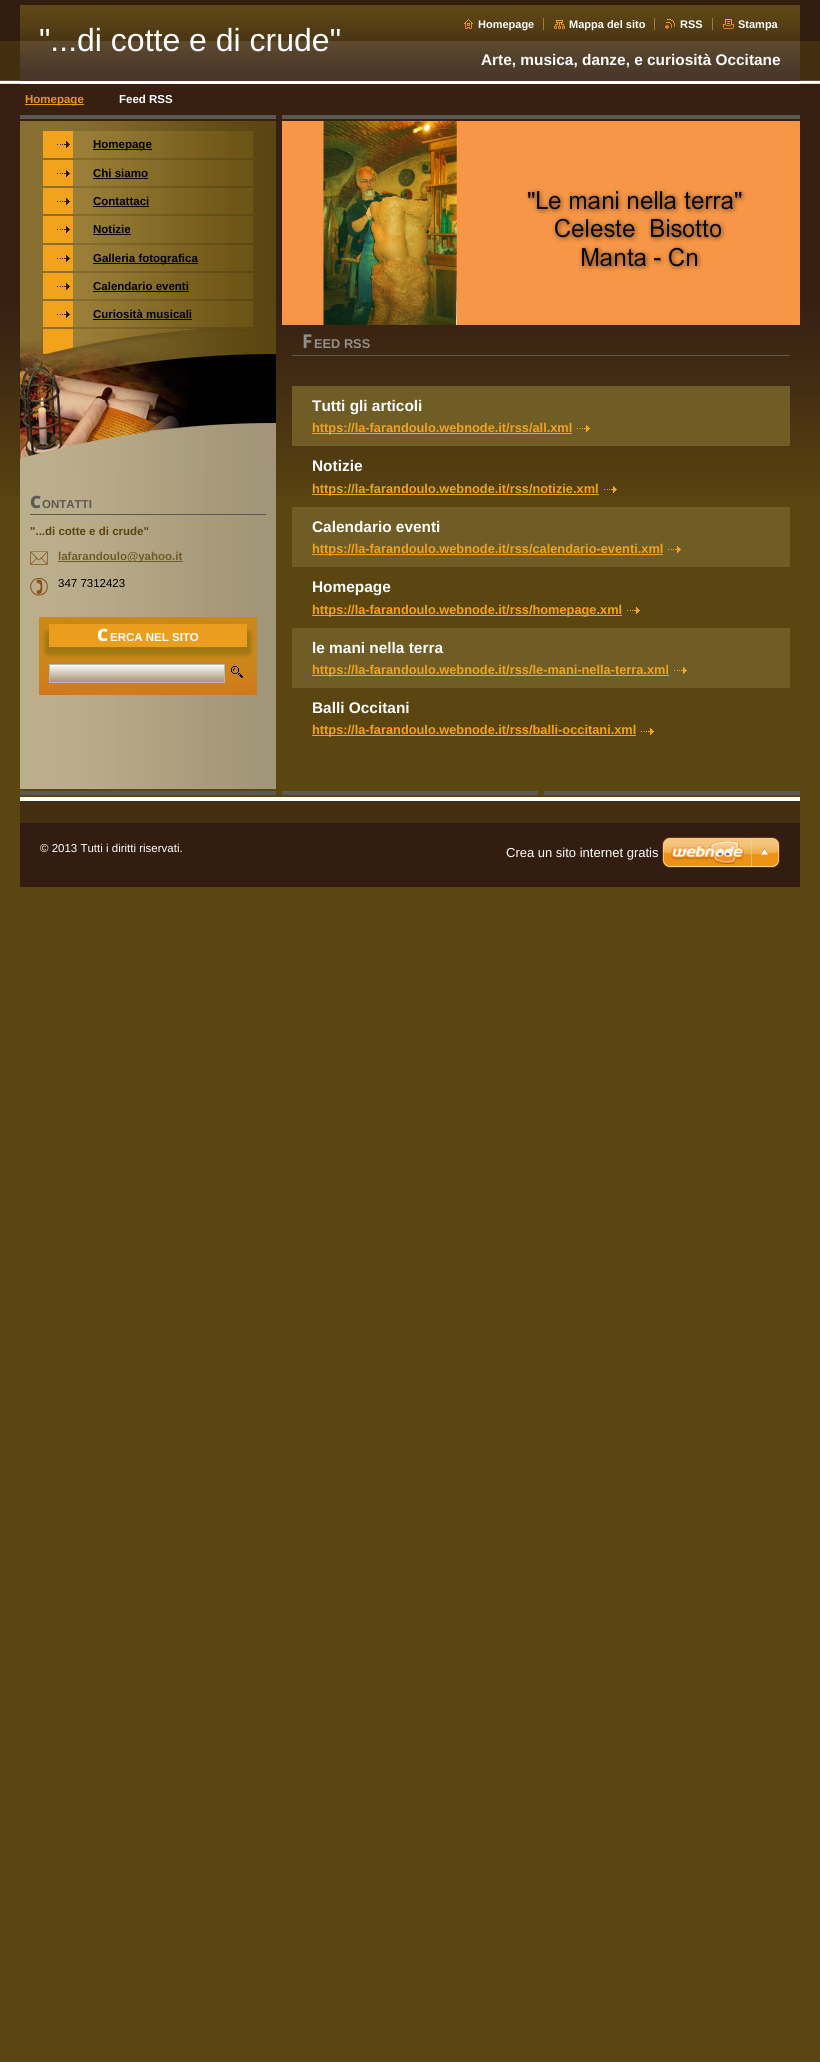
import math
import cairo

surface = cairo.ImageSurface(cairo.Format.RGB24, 820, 2062)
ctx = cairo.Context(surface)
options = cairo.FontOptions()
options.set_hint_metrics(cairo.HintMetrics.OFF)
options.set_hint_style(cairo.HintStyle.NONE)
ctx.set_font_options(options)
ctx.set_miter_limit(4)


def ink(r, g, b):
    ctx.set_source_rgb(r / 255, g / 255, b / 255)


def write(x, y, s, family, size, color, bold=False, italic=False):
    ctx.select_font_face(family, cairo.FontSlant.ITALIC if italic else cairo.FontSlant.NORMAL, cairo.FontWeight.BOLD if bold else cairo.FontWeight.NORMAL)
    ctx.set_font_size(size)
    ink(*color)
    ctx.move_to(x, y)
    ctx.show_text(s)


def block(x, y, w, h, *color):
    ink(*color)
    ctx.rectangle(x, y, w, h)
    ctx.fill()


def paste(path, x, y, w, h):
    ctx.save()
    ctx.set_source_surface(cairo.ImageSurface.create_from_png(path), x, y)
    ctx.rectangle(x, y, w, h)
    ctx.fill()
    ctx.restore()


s1 = dict(family="Liberation Sans", size=11, color=(255, 255, 255), bold=True)
s2 = dict(family="Liberation Sans", size=32, color=(255, 255, 255))
s3 = dict(family="Liberation Sans", size=15.4, color=(255, 255, 255), bold=True)
s4 = dict(family="Liberation Sans", size=11.5, color=(237, 149, 28), bold=True)
s5 = dict(family="Liberation Sans", size=11.5, color=(255, 255, 255), bold=True)
s6 = dict(family="Liberation Sans", size=11.5, color=(0, 0, 0), bold=True)
s7 = dict(family="Noto Sans Black", size=17, color=(92, 88, 89))
s8 = dict(family="Liberation Sans", size=11.5, color=(92, 88, 89), bold=True)
s9 = dict(family="Liberation Sans", size=11.5, color=(91, 70, 17), bold=True)
s10 = dict(family="Liberation Sans", size=11.5, color=(112, 93, 38), bold=True)
s11 = dict(family="Liberation Sans", size=11.5, color=(0, 0, 0))
s12 = dict(family="Noto Sans Black", size=17, color=(255, 255, 255))
s13 = dict(family="Noto Sans", size=19, color=(143, 143, 143), bold=True)
s14 = dict(family="Liberation Sans", size=12.8, color=(143, 143, 143), bold=True)
s15 = dict(family="Liberation Sans", size=12.8, color=(243, 162, 28), bold=True)
s16 = dict(family="Liberation Sans", size=11.5, color=(255, 255, 255))
s17 = dict(family="Liberation Sans", size=13, color=(255, 255, 255))

ink(91, 70, 17)
ctx.paint()
paste("pic1.png", 0, 0, 820, 496)
paste("pic2.png", 20, 471, 256, 318)
paste("pic3.png", 20, 0, 780, 81)
block(20, 83, 780, 1, 255, 255, 255)
paste("pic4.png", 464, 19, 9, 10)
write(478, 28, "Homepage", **s1)
paste("pic5.png", 554, 20, 11, 9)
write(569, 28, "Mappa del sito", **s1)
block(543, 18, 1, 12, 154, 126, 55)
paste("pic6.png", 665, 19, 10, 10)
write(680, 28, "RSS", **s1)
block(654, 18, 1, 12, 154, 126, 55)
paste("pic7.png", 723, 19, 11, 10)
write(738, 28, "Stampa", **s1)
block(712, 18, 1, 12, 154, 126, 55)
write(39, 51, "\"...di cotte e di crude\"", **s2)
write(481, 65, "Arte, musica, danze, e curiosità Occitane", **s3)
block(20, 84, 780, 1, 55, 32, 18)
block(25, 104, 59, 1, 237, 149, 28)
write(25, 103, "Homepage", **s4)
write(119, 103, "Feed RSS", **s5)
paste("pic8.png", 20, 115, 256, 6)
paste("pic9.png", 20, 121, 256, 208)
paste("pic10.png", 43, 131, 210, 27)
paste("pic11.png", 57, 141, 13, 7)
block(93, 149, 59, 1, 0, 0, 0)
write(93, 148, "Homepage", **s6)
paste("pic12.png", 43, 160, 210, 26)
paste("pic11.png", 57, 170, 13, 7)
write(93, 177, "Chi siamo", **s6)
block(93, 178, 55, 1, 0, 0, 0)
paste("pic12.png", 43, 188, 210, 26)
paste("pic11.png", 57, 198, 13, 7)
write(93, 205, "Contattaci", **s6)
block(93, 206, 56, 1, 0, 0, 0)
paste("pic10.png", 43, 216, 210, 27)
paste("pic11.png", 57, 226, 13, 7)
write(93, 233, "Notizie", **s6)
block(93, 234, 38, 1, 0, 0, 0)
paste("pic12.png", 43, 245, 210, 26)
paste("pic11.png", 57, 255, 13, 7)
block(93, 263, 105, 1, 0, 0, 0)
write(93, 262, "Galleria fotografica", **s6)
paste("pic12.png", 43, 273, 210, 26)
paste("pic11.png", 57, 283, 13, 7)
write(93, 290, "Calendario eventi", **s6)
block(93, 291, 96, 1, 0, 0, 0)
paste("pic12.png", 43, 301, 210, 26)
paste("pic11.png", 57, 311, 13, 7)
write(93, 318, "Curiosità musicali", **s6)
block(93, 319, 99, 1, 0, 0, 0)
paste("pic13.png", 20, 329, 256, 142)
block(30, 514, 236, 1, 92, 88, 89)
write(30, 508, "C", **s7)
write(42, 508, "ONTATTI", **s8)
write(30, 535, "\"...di cotte e di crude\"", **s9)
paste("pic14.png", 30, 551, 18, 14)
block(58, 561, 125, 1, 112, 93, 38)
write(58, 560, "lafarandoulo@yahoo.it", **s10)
paste("pic15.png", 30, 578, 18, 18)
write(58, 587, "347 7312423", **s11)
paste("pic16.png", 39, 617, 218, 78)
block(49, 647, 198, 5, 160, 120, 20)
paste("pic17.png", 39, 627, 218, 32)
paste("pic18.png", 43, 627, 210, 7)
block(49, 624, 198, 23, 235, 158, 29)
write(97, 641, "C", **s12)
write(110, 641, "ERCA NEL SITO", **s5)
paste("pic19.png", 43, 652, 210, 7)
paste("pic20.png", 50, 665, 174, 17)
ctx.rectangle(49.5, 664.5, 175, 18)
ink(184, 184, 184)
ctx.set_line_width(1)
ctx.stroke()
paste("pic21.png", 231, 666, 12, 12)
block(282, 115, 518, 4, 91, 88, 88)
paste("pic22.png", 282, 121, 518, 204)
block(292, 355, 498, 1, 90, 88, 89)
write(302, 348, "F", **s13)
write(314, 348, "EED RSS", **s14)
block(292, 386, 498, 60, 112, 93, 38)
write(312, 411, "Tutti gli articoli", **s3)
block(312, 433, 260, 1, 243, 162, 28)
write(312, 432, "https://la-farandoulo.webnode.it/rss/all.xml", **s15)
paste("pic23.png", 577, 425, 13, 7)
write(312, 471, "Notizie", **s3)
block(312, 494, 287, 1, 243, 162, 28)
write(312, 493, "https://la-farandoulo.webnode.it/rss/notizie.xml", **s15)
paste("pic24.png", 604, 486, 13, 7)
block(292, 507, 498, 60, 112, 93, 38)
write(312, 532, "Calendario eventi", **s3)
block(312, 554, 351, 1, 243, 162, 28)
write(312, 553, "https://la-farandoulo.webnode.it/rss/calendario-eventi.xml", **s15)
paste("pic23.png", 668, 546, 13, 7)
write(312, 592, "Homepage", **s3)
block(312, 615, 310, 1, 243, 162, 28)
write(312, 614, "https://la-farandoulo.webnode.it/rss/homepage.xml", **s15)
paste("pic25.png", 627, 607, 13, 7)
block(292, 628, 498, 60, 112, 93, 38)
write(312, 653, "le mani nella terra", **s3)
block(312, 675, 357, 1, 243, 162, 28)
write(312, 674, "https://la-farandoulo.webnode.it/rss/le-mani-nella-terra.xml", **s15)
paste("pic23.png", 674, 667, 13, 7)
write(312, 713, "Balli Occitani", **s3)
block(312, 735, 324, 1, 243, 162, 28)
write(312, 734, "https://la-farandoulo.webnode.it/rss/balli-occitani.xml", **s15)
paste("pic25.png", 641, 728, 13, 7)
block(20, 823, 780, 64, 51, 29, 16)
paste("pic26.png", 20, 789, 780, 12)
block(20, 801, 780, 22, 68, 46, 16)
write(40, 852, "© 2013 Tutti i diritti riservati.", **s16)
write(506, 857, "Crea un sito internet gratis", **s17)
paste("pic27.png", 662, 837, 118, 31)
surface.write_to_png("screenshot.png")
